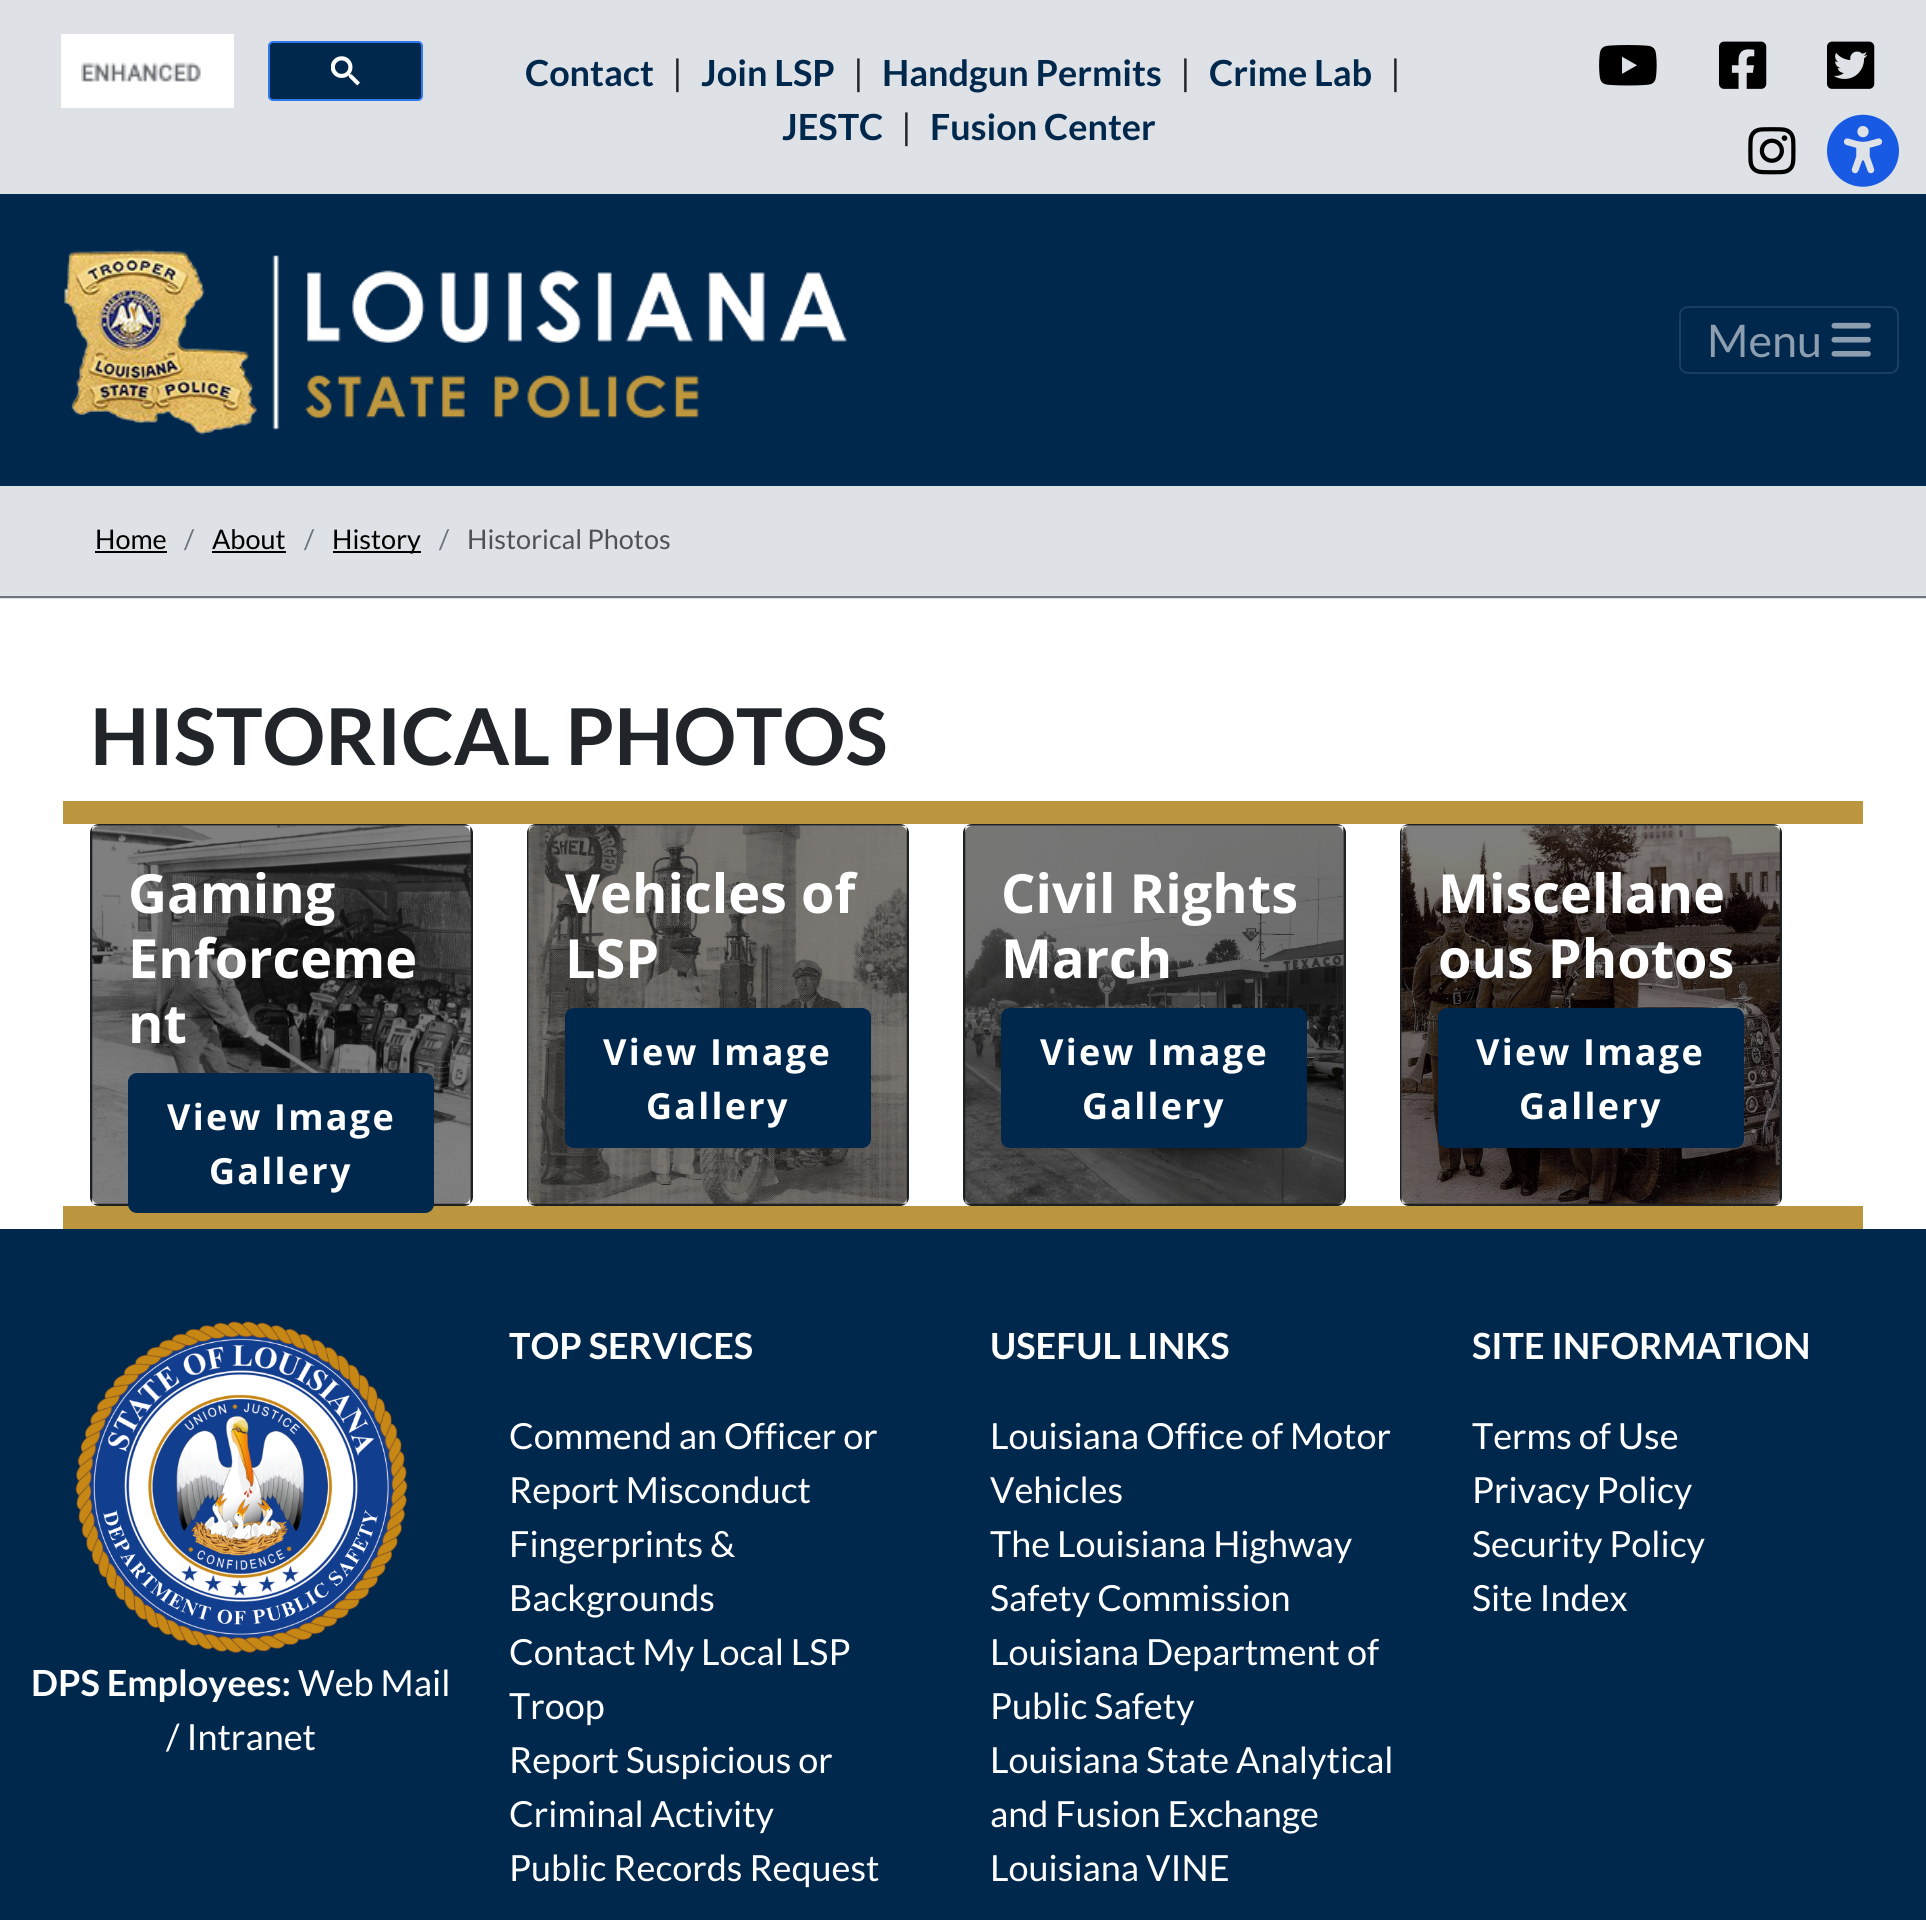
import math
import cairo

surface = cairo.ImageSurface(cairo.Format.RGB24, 1926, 1920)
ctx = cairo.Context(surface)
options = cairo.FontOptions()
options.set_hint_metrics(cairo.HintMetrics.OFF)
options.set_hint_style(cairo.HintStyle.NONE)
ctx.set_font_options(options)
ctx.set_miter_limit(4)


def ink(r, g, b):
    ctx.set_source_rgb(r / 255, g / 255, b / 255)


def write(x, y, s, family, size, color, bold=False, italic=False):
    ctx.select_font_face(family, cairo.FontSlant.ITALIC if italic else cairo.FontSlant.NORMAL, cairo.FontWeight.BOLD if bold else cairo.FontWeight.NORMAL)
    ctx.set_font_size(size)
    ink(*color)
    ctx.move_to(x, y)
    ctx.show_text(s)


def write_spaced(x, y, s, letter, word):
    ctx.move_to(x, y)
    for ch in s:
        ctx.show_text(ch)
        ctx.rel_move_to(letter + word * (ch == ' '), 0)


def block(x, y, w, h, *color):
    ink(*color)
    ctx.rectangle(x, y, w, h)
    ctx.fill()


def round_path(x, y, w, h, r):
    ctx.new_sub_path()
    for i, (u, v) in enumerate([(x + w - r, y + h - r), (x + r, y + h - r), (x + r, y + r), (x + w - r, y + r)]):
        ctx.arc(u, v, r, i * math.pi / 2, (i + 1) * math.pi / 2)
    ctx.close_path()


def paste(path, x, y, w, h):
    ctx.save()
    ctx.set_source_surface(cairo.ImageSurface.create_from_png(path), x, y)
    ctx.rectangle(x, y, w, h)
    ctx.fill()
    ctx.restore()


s1 = dict(family="Lato", size=36, color=(0, 40, 77), bold=True)
s2 = dict(family="Lato", size=36, color=(33, 37, 41))
s3 = dict(family="Lato", size=45, color=(140, 158, 175))
s4 = dict(family="Lato", size=27, color=(0, 0, 0))
s5 = dict(family="Lato", size=27, color=(108, 117, 125))
s6 = dict(family="Lato", size=27, color=(79, 83, 87))
s7 = dict(family="Lato", size=78.4, color=(33, 37, 41), bold=True)
s8 = dict(family="Open Sans", size=54, color=(255, 255, 255), bold=True)
s9 = dict(family="Lato", size=36, color=(255, 255, 255), bold=True)
s10 = dict(family="Lato", size=36, color=(255, 255, 255))

ink(255, 255, 255)
ctx.paint()
block(0, 0, 1926, 194, 222, 226, 230)
block(61, 34, 173, 74, 255, 255, 255)
paste("pic1.png", 81, 62, 120, 20)
ink(0, 40, 77)
round_path(269, 42, 153, 58, 4)
ctx.fill_preserve()
ink(48, 121, 237)
ctx.stroke()
paste("pic2.png", 331, 56, 29, 30)
write(525, 86, "Contact", **s1)
write(672, 86, "|", **s2)
write(701, 86, "Join LSP", **s1)
write(853, 86, "|", **s2)
write(882, 86, "Handgun Permits", **s1)
write(1180, 86, "|", **s2)
write(1209, 86, "Crime Lab", **s1)
write(1390, 86, "|", **s2)
write(782, 140, "JESTC", **s1)
write(901, 140, "|", **s2)
write(930, 140, "Fusion Center", **s1)
paste("pic3.png", 1599, 45, 58, 41)
paste("pic4.png", 1719, 41, 48, 48)
paste("pic5.png", 1827, 41, 48, 48)
paste("pic6.png", 1748, 127, 48, 48)
paste("pic7.png", 1827, 114, 72, 73)
block(0, 194, 1926, 292, 0, 40, 77)
paste("pic8.png", 64, 249, 783, 186)
round_path(1680, 307, 218, 66, 8)
ink(26, 62, 95)
ctx.stroke()
write(1707, 357, "Menu", **s3)
paste("pic9.png", 1831, 322, 40, 35)
block(0, 486, 1926, 113, 222, 226, 230)
block(0, 596, 1926, 2, 108, 117, 125)
write(95, 549, "Home", **s4)
block(95, 551, 72, 2, 0, 0, 0)
write(184, 549, "/", **s5)
write(212, 549, "About", **s4)
block(212, 551, 74, 2, 0, 0, 0)
write(304, 549, "/", **s5)
block(333, 551, 88, 2, 0, 0, 0)
write(332, 549, "History", **s4)
write(439, 549, "/", **s5)
write(467, 549, "Historical Photos", **s6)
write(90, 765, "HISTORICAL PHOTOS", **s7)
block(63, 801, 1800, 23, 188, 150, 62)
block(63, 1206, 1800, 23, 188, 150, 62)
ink(33, 37, 41)
round_path(90, 824, 383, 382, 9)
ctx.fill()
round_path(91, 825, 381, 380, 8)
ctx.set_source_rgba(0, 0, 0, 0.12)
ctx.stroke()
paste("pic10.png", 92, 825, 379, 379)
ctx.set_source_rgba(0, 0, 0, 0.5)
round_path(92, 826, 378, 378, 7)
ctx.fill()
write(128, 913, "Gaming", **s8)
write(128, 978, "Enforceme", **s8)
write(128, 1043, "nt", **s8)
ink(0, 40, 77)
round_path(129, 1074, 304, 138, 8)
ctx.fill_preserve()
ctx.stroke()
ctx.set_font_size(36)
ink(255, 255, 255)
write_spaced(167, 1130, "View Image", 2.25, 0)
write_spaced(209, 1184, "Gallery", 2.25, 0)
ink(33, 37, 41)
round_path(527, 824, 382, 382, 9)
ctx.fill()
round_path(528, 825, 380, 380, 8)
ctx.set_source_rgba(0, 0, 0, 0.12)
ctx.stroke()
paste("pic11.png", 528, 825, 379, 379)
ctx.set_source_rgba(0, 0, 0, 0.5)
round_path(529, 826, 378, 378, 7)
ctx.fill()
write(565, 913, "Vehicles of", **s8)
write(565, 978, "LSP", **s8)
ink(0, 40, 77)
round_path(566, 1009, 304, 138, 8)
ctx.fill_preserve()
ctx.stroke()
ctx.set_font_size(36)
ink(255, 255, 255)
write_spaced(603, 1065, "View Image", 2.25, 0)
write_spaced(646, 1119, "Gallery", 2.25, 0)
ink(33, 37, 41)
round_path(963, 824, 383, 382, 9)
ctx.fill()
round_path(964, 825, 381, 380, 8)
ctx.set_source_rgba(0, 0, 0, 0.12)
ctx.stroke()
paste("pic12.png", 965, 825, 379, 379)
ctx.set_source_rgba(0, 0, 0, 0.5)
round_path(965, 826, 378, 378, 7)
ctx.fill()
write(1001, 913, "Civil Rights", **s8)
write(1001, 978, "March", **s8)
ink(0, 40, 77)
round_path(1002, 1009, 304, 138, 8)
ctx.fill_preserve()
ctx.stroke()
ctx.set_font_size(36)
ink(255, 255, 255)
write_spaced(1040, 1065, "View Image", 2.25, 0)
write_spaced(1082, 1119, "Gallery", 2.25, 0)
ink(33, 37, 41)
round_path(1400, 824, 382, 382, 9)
ctx.fill()
round_path(1401, 825, 380, 380, 8)
ctx.set_source_rgba(0, 0, 0, 0.12)
ctx.stroke()
paste("pic13.png", 1401, 825, 379, 379)
ctx.set_source_rgba(0, 0, 0, 0.5)
round_path(1402, 826, 378, 378, 7)
ctx.fill()
write(1438, 913, "Miscellane", **s8)
write(1438, 978, "ous Photos", **s8)
ink(0, 40, 77)
round_path(1439, 1009, 304, 138, 8)
ctx.fill_preserve()
ctx.stroke()
ctx.set_font_size(36)
ink(255, 255, 255)
write_spaced(1476, 1065, "View Image", 2.25, 0)
write_spaced(1519, 1119, "Gallery", 2.25, 0)
block(0, 1229, 1926, 691, 0, 40, 77)
write(509, 1359, "TOP SERVICES", **s9)
write(509, 1449, "Commend an Officer or", **s10)
write(509, 1503, "Report Misconduct", **s10)
write(509, 1557, "Fingerprints &", **s10)
write(509, 1611, "Backgrounds", **s10)
write(509, 1665, "Contact My Local LSP", **s10)
write(509, 1719, "Troop", **s10)
write(509, 1773, "Report Suspicious or", **s10)
write(509, 1827, "Criminal Activity", **s10)
write(509, 1881, "Public Records Request", **s10)
write(990, 1359, "USEFUL LINKS", **s9)
write(990, 1449, "Louisiana Office of Motor", **s10)
write(990, 1503, "Vehicles", **s10)
write(990, 1557, "The Louisiana Highway", **s10)
write(990, 1611, "Safety Commission", **s10)
write(990, 1665, "Louisiana Department of", **s10)
write(990, 1719, "Public Safety", **s10)
write(990, 1773, "Louisiana State Analytical", **s10)
write(990, 1827, "and Fusion Exchange", **s10)
write(990, 1881, "Louisiana VINE", **s10)
write(1472, 1359, "SITE INFORMATION", **s9)
write(1472, 1449, "Terms of Use", **s10)
write(1472, 1503, "Privacy Policy", **s10)
write(1472, 1557, "Security Policy", **s10)
write(1472, 1611, "Site Index", **s10)
paste("pic14.png", 75, 1321, 333, 332)
write(31, 1696, "DPS Employees:", **s9)
write(298, 1696, "Web Mail", **s10)
write(166, 1750, "/ Intranet", **s10)
surface.write_to_png("screenshot.png")
